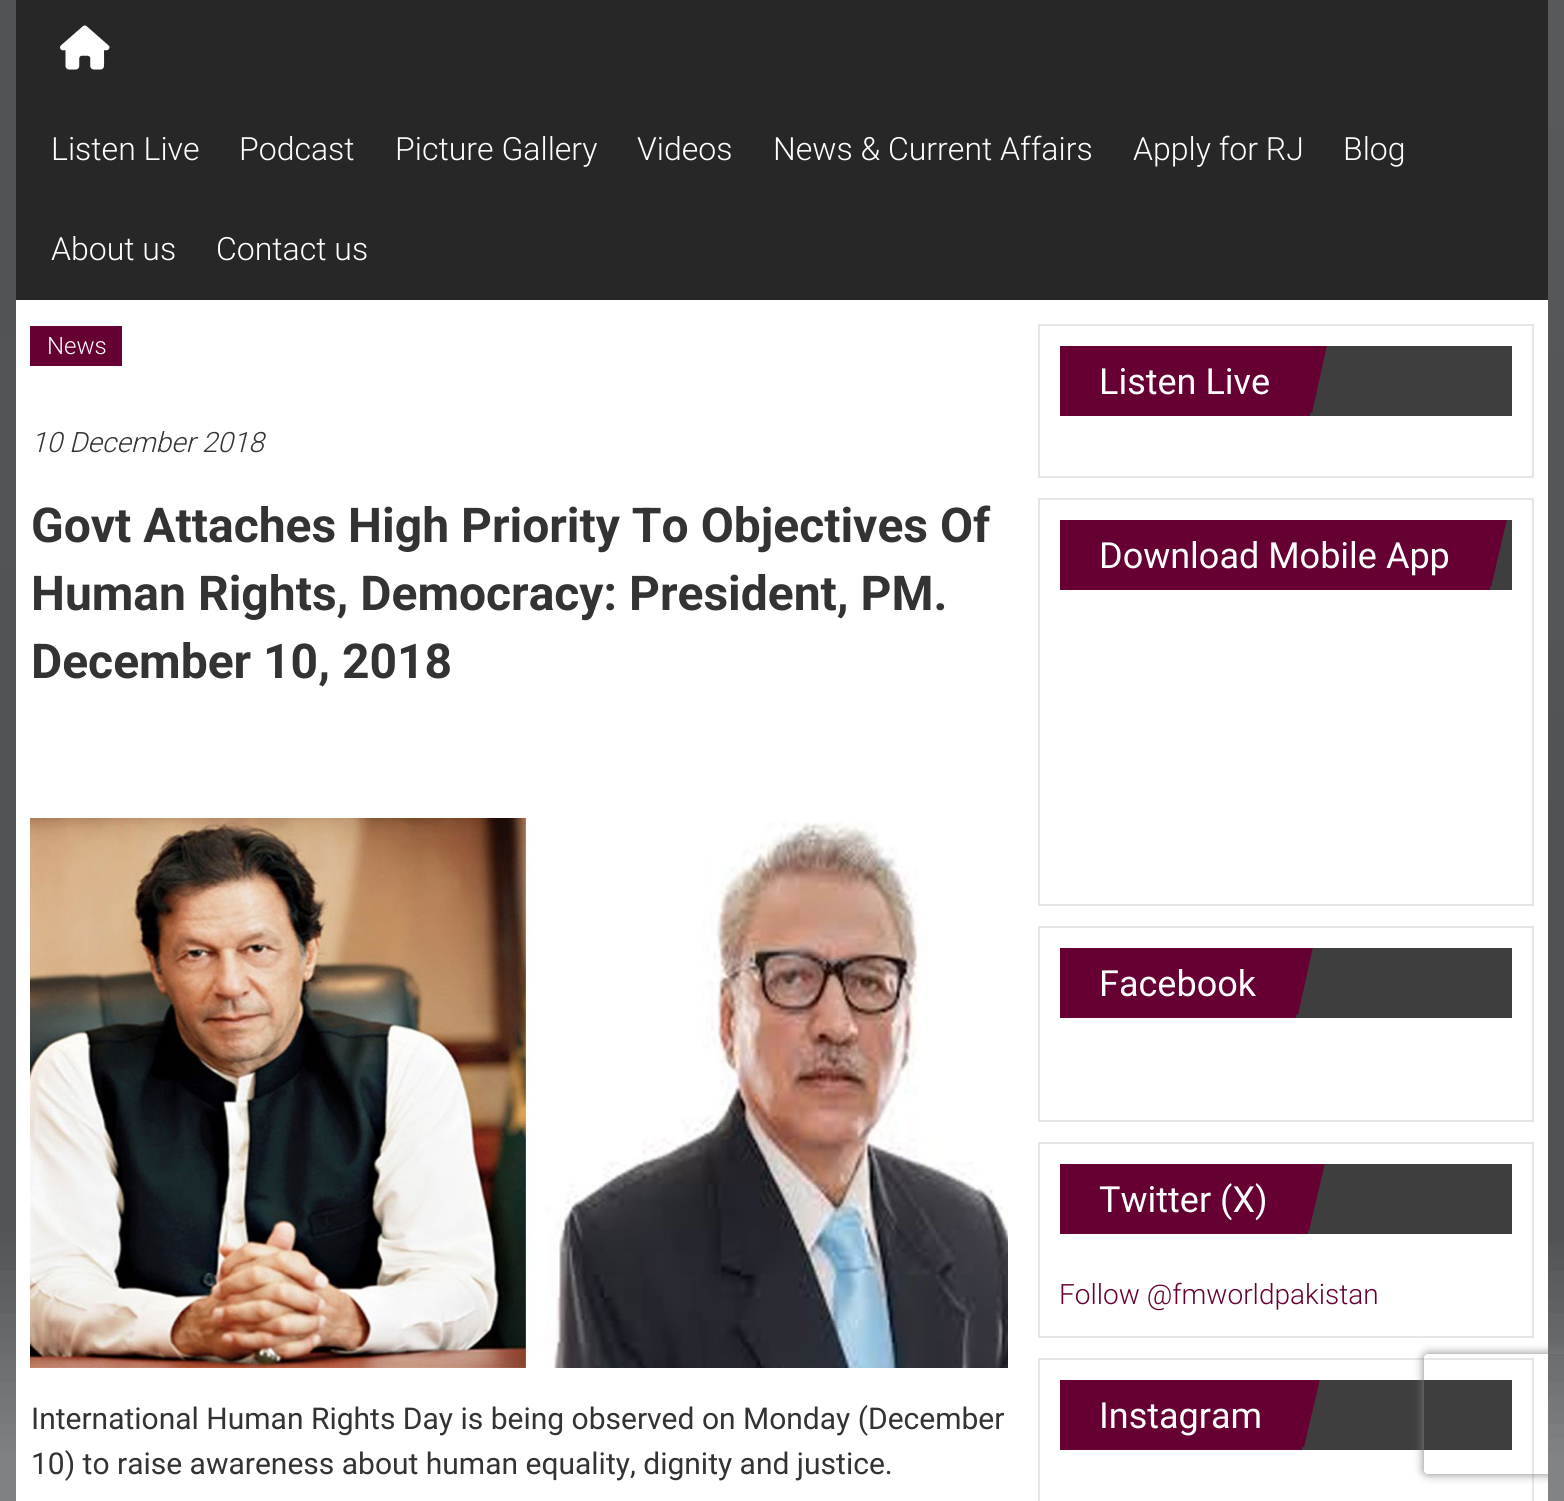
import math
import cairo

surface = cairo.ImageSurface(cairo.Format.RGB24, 1564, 1501)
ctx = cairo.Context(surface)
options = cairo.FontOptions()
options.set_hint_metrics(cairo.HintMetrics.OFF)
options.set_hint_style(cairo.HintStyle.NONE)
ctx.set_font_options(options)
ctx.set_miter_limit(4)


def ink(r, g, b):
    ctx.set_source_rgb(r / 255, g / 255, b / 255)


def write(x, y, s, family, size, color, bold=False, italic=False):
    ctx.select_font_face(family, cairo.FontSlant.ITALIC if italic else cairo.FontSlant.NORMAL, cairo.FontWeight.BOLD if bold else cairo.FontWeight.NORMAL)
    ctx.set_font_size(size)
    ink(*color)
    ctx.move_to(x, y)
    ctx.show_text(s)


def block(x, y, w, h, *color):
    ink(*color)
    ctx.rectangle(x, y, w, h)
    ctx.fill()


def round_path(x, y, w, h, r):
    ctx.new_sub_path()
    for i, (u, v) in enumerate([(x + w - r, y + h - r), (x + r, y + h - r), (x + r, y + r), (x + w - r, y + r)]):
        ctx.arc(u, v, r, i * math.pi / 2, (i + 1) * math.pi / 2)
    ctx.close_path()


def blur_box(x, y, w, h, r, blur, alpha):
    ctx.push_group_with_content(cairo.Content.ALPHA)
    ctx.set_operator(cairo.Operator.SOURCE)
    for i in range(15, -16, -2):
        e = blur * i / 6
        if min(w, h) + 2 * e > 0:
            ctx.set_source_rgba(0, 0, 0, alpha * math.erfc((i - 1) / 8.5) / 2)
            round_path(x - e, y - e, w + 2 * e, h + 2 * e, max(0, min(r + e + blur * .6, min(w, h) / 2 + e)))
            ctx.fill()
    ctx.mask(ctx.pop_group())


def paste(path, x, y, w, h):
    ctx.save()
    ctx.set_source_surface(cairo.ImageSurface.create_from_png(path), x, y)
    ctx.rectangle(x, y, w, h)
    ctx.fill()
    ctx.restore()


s1 = dict(family="Roboto Light", size=32, color=(255, 255, 255))
s2 = dict(family="Roboto Light", size=24, color=(255, 255, 255))
s3 = dict(family="Roboto Light", size=28, color=(51, 51, 51), italic=True)
s4 = dict(family="Roboto", size=48, color=(51, 51, 51), bold=True)
s5 = dict(family="Roboto", size=30, color=(51, 51, 51))
s6 = dict(family="Roboto", size=36, color=(255, 255, 255))
s7 = dict(family="Roboto Light", size=28, color=(102, 0, 51))

ink(255, 255, 255)
ctx.paint()
paste("pic1.png", 0, 0, 1564, 1501)
block(16, 300, 1532, 1201, 255, 255, 255)
block(16, 0, 1532, 300, 39, 39, 39)
paste("pic2.png", 60, 25, 50, 45)
write(51, 160, "Listen Live", **s1)
write(239, 160, "Podcast", **s1)
write(395, 160, "Picture Gallery", **s1)
write(637, 160, "Videos", **s1)
write(773, 160, "News & Current Affairs", **s1)
write(1133, 160, "Apply for RJ", **s1)
write(1343, 160, "Blog", **s1)
write(51, 260, "About us", **s1)
write(216, 260, "Contact us", **s1)
block(30, 326, 92, 40, 102, 0, 51)
write(47, 354, "News", **s2)
write(31, 452, "10 December 2018", **s3)
write(31, 542, "Govt Attaches High Priority To Objectives Of", **s4)
write(31, 610, "Human Rights, Democracy: President, PM.", **s4)
write(31, 678, "December 10, 2018", **s4)
paste("pic3.png", 30, 818, 978, 550)
write(31, 1429, "International Human Rights Day is being observed on Monday (December", **s5)
write(31, 1474, "10) to raise awareness about human equality, dignity and justice.", **s5)
ctx.rectangle(1039, 325, 494, 152)
ink(230, 230, 230)
ctx.stroke()
block(1310, 346, 202, 70, 62, 62, 62)
block(1060, 346, 250, 70, 102, 0, 51)
ctx.save()
ctx.rectangle(1060, 346, 452, 70)
ctx.clip()
ctx.new_path()
ctx.move_to(1327, 345)
ctx.line_to(1312, 413)
ctx.line_to(1243, 397)
ctx.line_to(1259, 329)
ctx.close_path()
ctx.fill()
ctx.restore()
write(1099, 394, "Listen Live", **s6)
ctx.rectangle(1039, 499, 494, 406)
ink(230, 230, 230)
ctx.stroke()
block(1490, 520, 22, 70, 62, 62, 62)
block(1060, 520, 430, 70, 102, 0, 51)
ctx.save()
ctx.rectangle(1060, 520, 452, 70)
ctx.clip()
ctx.new_path()
ctx.move_to(1507, 519)
ctx.line_to(1491, 587)
ctx.line_to(1423, 571)
ctx.line_to(1439, 503)
ctx.close_path()
ctx.fill()
ctx.restore()
write(1099, 568, "Download Mobile App", **s6)
ctx.rectangle(1039, 927, 494, 194)
ink(230, 230, 230)
ctx.stroke()
block(1296, 948, 216, 70, 62, 62, 62)
block(1060, 948, 236, 70, 102, 0, 51)
ctx.save()
ctx.rectangle(1060, 948, 452, 70)
ctx.clip()
ctx.new_path()
ctx.move_to(1313, 947)
ctx.line_to(1298, 1015)
ctx.line_to(1229, 999)
ctx.line_to(1245, 931)
ctx.close_path()
ctx.fill()
ctx.restore()
write(1099, 996, "Facebook", **s6)
ctx.rectangle(1039, 1143, 494, 194)
ink(230, 230, 230)
ctx.stroke()
block(1308, 1164, 204, 70, 62, 62, 62)
block(1060, 1164, 248, 70, 102, 0, 51)
ctx.save()
ctx.rectangle(1060, 1164, 452, 70)
ctx.clip()
ctx.new_path()
ctx.move_to(1325, 1163)
ctx.line_to(1309, 1231)
ctx.line_to(1241, 1215)
ctx.line_to(1257, 1147)
ctx.close_path()
ctx.fill()
ctx.restore()
write(1099, 1212, "Twitter (X)", **s6)
write(1059, 1304, "Follow @fmworldpakistan", **s7)
ctx.rectangle(1039, 1359, 494, 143)
ink(230, 230, 230)
ctx.stroke()
block(1302, 1380, 210, 70, 62, 62, 62)
block(1060, 1380, 242, 70, 102, 0, 51)
ctx.save()
ctx.rectangle(1060, 1380, 452, 70)
ctx.clip()
ctx.new_path()
ctx.move_to(1320, 1379)
ctx.line_to(1304, 1447)
ctx.line_to(1236, 1431)
ctx.line_to(1251, 1363)
ctx.close_path()
ctx.fill()
ctx.restore()
write(1099, 1428, "Instagram", **s6)
ctx.save()
ctx.set_fill_rule(cairo.FillRule.EVEN_ODD)
ctx.new_path()
ctx.move_to(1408, 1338)
ctx.line_to(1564, 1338)
ctx.line_to(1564, 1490)
ctx.line_to(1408, 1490)
ctx.close_path()
ctx.move_to(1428, 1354)
ctx.line_to(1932, 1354)
ctx.curve_to(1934, 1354, 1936, 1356, 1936, 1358)
ctx.line_to(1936, 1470)
ctx.curve_to(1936, 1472, 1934, 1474, 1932, 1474)
ctx.line_to(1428, 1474)
ctx.curve_to(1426, 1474, 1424, 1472, 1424, 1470)
ctx.line_to(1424, 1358)
ctx.curve_to(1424, 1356, 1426, 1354, 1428, 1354)
ctx.close_path()
ctx.clip()
ink(128, 128, 128)
blur_box(1424, 1354, 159, 120, 4, 5, 1)
ctx.restore()
surface.write_to_png("screenshot.png")
